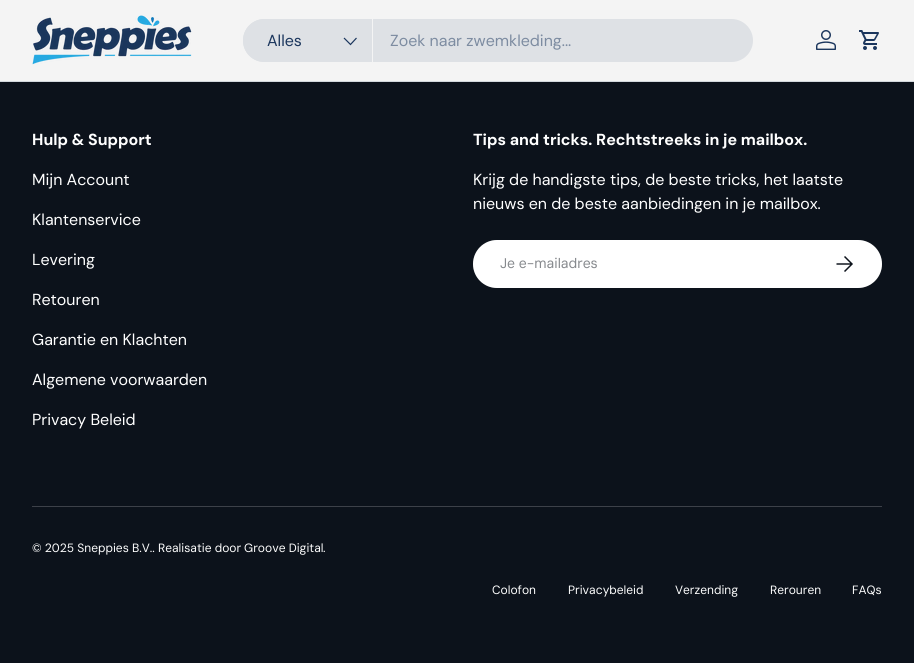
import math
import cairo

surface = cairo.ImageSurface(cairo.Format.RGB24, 914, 663)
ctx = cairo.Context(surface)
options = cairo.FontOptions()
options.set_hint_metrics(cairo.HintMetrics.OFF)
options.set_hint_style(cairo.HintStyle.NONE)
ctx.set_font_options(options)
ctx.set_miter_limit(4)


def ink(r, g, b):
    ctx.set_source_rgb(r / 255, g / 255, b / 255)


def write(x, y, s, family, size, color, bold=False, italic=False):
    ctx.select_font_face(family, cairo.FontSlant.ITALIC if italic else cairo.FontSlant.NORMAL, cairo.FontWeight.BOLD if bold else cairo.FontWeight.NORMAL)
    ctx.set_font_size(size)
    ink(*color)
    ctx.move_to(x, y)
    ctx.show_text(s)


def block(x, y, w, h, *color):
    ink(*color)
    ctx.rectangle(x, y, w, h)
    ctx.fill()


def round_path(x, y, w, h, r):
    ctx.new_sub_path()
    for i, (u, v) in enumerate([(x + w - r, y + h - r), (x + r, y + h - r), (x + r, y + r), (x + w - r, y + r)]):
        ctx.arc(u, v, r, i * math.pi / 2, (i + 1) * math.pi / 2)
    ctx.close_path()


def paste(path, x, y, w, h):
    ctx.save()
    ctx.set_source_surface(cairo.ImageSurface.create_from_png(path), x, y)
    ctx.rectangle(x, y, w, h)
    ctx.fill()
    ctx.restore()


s1 = dict(family="DM Sans", size=16, color=(27, 54, 93))
s2 = dict(family="DM Sans", size=16, color=(125, 140, 161))
s3 = dict(family="DM Sans", size=16, color=(255, 255, 255), bold=True)
s4 = dict(family="DM Sans", size=16, color=(255, 255, 255))
s5 = dict(family="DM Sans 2", size=14, color=(134, 137, 141))
s6 = dict(family="DM Sans 2", size=12, color=(255, 255, 255))

ink(12, 18, 27)
ctx.paint()
block(0, 0, 914, 81, 244, 244, 244)
block(0, 81, 914, 1, 211, 216, 221)
paste("pic1.png", 32, 15, 160, 50)
ink(222, 225, 229)
round_path(243, 19, 510, 43, 21.5)
ctx.fill()
ctx.new_path()
ctx.move_to(264.5, 19)
ctx.line_to(373, 19)
ctx.line_to(373, 62)
ctx.line_to(264.5, 62)
ctx.curve_to(252.5, 62, 243, 52.5, 243, 40.5)
ctx.curve_to(243, 28.5, 252.5, 19, 264.5, 19)
ctx.close_path()
ctx.fill()
block(372, 19, 1, 43, 244, 244, 244)
write(267, 46, "Alles", **s1)
ctx.new_path()
ctx.move_to(356.5, 38)
ctx.line_to(350.5, 44.5)
ctx.line_to(344, 38)
ctx.set_line_width(1.2)
ctx.stroke()
write(390, 46, "Zoek naar zwemkleding...", **s2)
paste("pic2.png", 816, 30, 20, 20)
paste("pic3.png", 859, 30, 20, 20)
write(32, 145, "Hulp & Support", **s3)
write(32, 185, "Mijn Account", **s4)
write(32, 225, "Klantenservice", **s4)
write(32, 265, "Levering", **s4)
write(32, 305, "Retouren", **s4)
write(32, 345, "Garantie en Klachten", **s4)
write(32, 385, "Algemene voorwaarden", **s4)
write(32, 425, "Privacy Beleid", **s4)
write(473, 145, "Tips and tricks. Rechtstreeks in je mailbox.", **s3)
write(473, 185, "Krijg de handigste tips, de beste tricks, het laatste", **s4)
write(473, 209, "nieuws en de beste aanbiedingen in je mailbox.", **s4)
round_path(473, 240, 409, 48, 24)
ctx.fill()
round_path(474, 241, 407, 46, 23)
ctx.set_source_rgba(1, 1, 1, 0.2)
ctx.set_line_width(2)
ctx.stroke()
write(500, 268, "Je e-mailadres", **s5)
ctx.new_path()
ctx.move_to(836.5, 264)
ctx.line_to(851.5, 264)
ctx.move_to(844.5, 256.5)
ctx.line_to(852, 264)
ctx.line_to(844.5, 271.5)
ink(12, 18, 27)
ctx.set_line_width(1.5)
ctx.stroke()
block(32, 506, 850, 1, 61, 65, 73)
write(32, 552, "© 2025 Sneppies B.V..", **s6)
write(158, 552, "Realisatie door", **s6)
write(244, 552, "Groove Digital", **s6)
write(323, 552, ".", **s6)
write(492, 594, "Colofon", **s6)
write(568, 594, "Privacybeleid", **s6)
write(675, 594, "Verzending", **s6)
write(770, 594, "Rerouren", **s6)
write(852, 594, "FAQs", **s6)
surface.write_to_png("screenshot.png")
